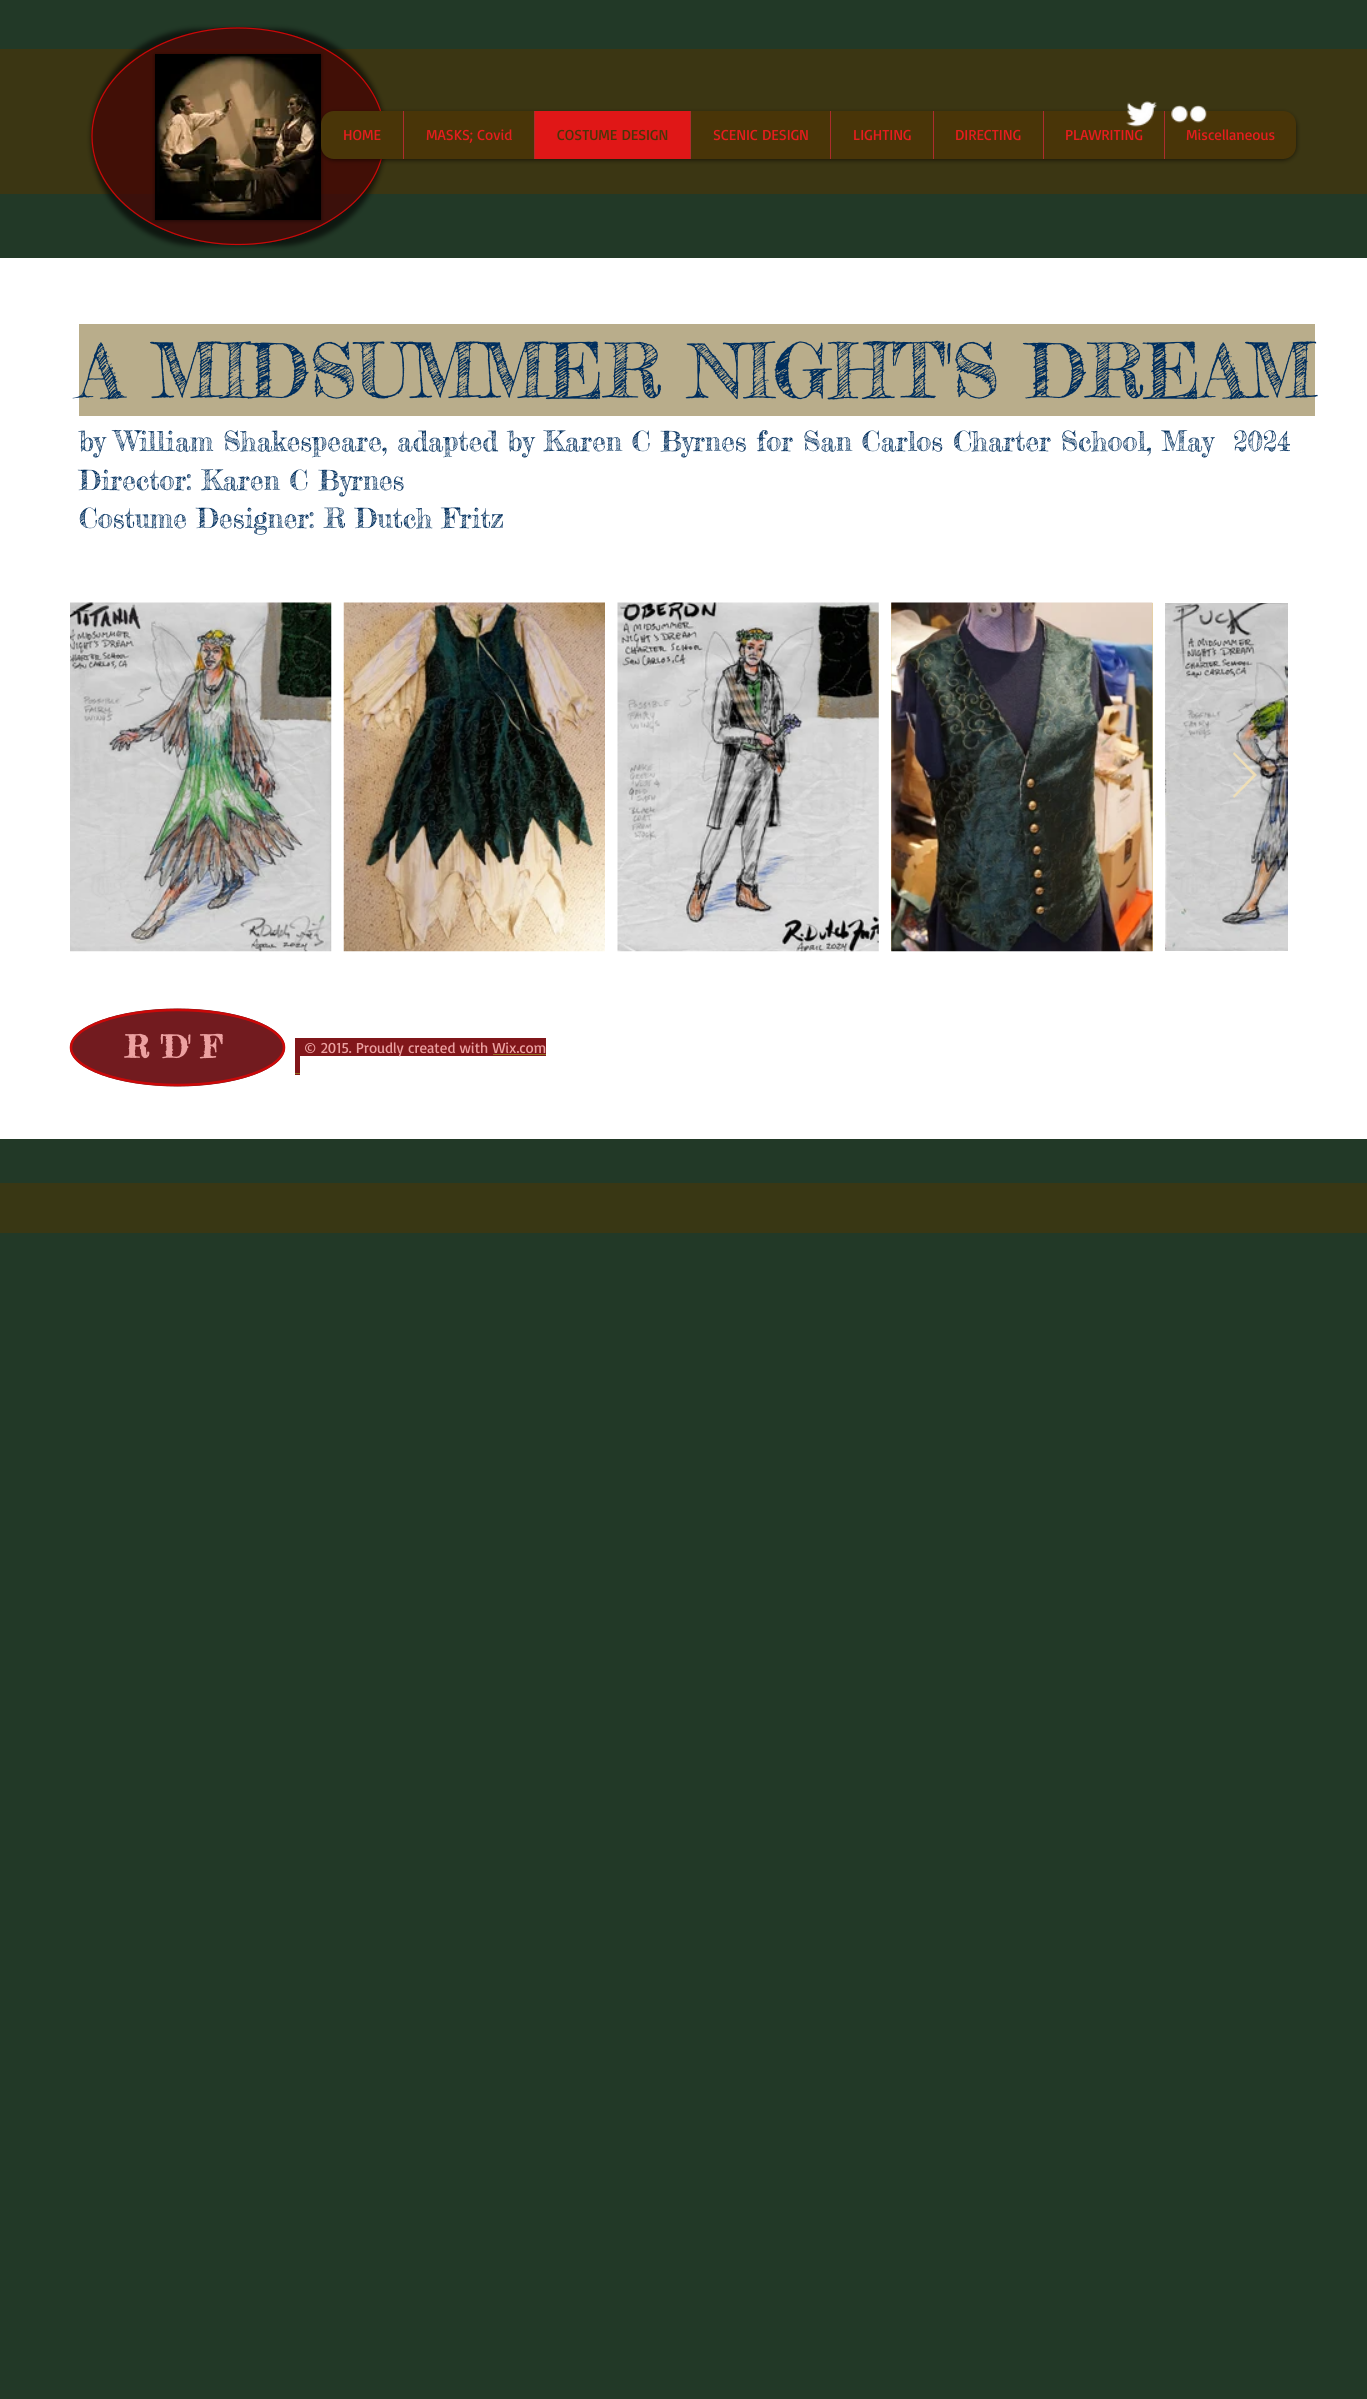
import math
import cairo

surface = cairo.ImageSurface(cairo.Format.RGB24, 1367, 2399)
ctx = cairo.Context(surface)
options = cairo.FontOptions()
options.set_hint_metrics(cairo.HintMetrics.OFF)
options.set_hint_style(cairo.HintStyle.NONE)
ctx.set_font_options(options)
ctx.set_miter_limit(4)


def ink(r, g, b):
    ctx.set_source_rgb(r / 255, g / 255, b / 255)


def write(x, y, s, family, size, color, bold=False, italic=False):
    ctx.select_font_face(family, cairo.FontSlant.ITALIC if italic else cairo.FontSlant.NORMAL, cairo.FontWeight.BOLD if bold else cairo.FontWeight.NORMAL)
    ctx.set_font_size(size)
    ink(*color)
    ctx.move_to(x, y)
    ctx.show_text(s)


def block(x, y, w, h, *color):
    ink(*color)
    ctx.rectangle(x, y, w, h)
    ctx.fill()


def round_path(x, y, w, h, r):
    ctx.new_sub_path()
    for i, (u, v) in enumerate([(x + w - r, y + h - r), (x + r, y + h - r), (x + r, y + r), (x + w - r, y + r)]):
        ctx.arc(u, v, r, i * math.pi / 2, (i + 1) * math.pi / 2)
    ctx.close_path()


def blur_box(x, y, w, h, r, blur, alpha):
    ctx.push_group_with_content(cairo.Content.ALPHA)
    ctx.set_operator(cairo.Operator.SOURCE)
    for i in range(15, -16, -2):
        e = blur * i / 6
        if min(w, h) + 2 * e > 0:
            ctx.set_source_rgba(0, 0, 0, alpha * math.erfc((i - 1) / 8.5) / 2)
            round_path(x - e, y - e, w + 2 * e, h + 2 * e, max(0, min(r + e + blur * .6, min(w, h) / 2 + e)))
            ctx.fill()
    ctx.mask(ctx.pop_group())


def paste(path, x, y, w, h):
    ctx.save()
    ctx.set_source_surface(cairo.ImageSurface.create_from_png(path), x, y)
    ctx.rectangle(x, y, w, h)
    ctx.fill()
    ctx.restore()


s1 = dict(family="Basic", size=15, color=(231, 29, 29))
s2 = dict(family="Basic", size=15, color=(73, 53, 8))
s3 = dict(family="Fredericka the Great", size=75, color=(0, 46, 93))
s4 = dict(family="Fredericka the Great", size=27.5, color=(0, 46, 93))
s5 = dict(family="Fredericka the Great", size=31, color=(237, 161, 161), bold=True)
s6 = dict(family="Basic", size=15, color=(237, 161, 161))

ink(34, 57, 39)
ctx.paint()
block(0, 49, 1367, 145, 59, 54, 19)
ctx.save()
ctx.set_fill_rule(cairo.FillRule.EVEN_ODD)
ctx.new_path()
ctx.move_to(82, 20)
ctx.line_to(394, 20)
ctx.line_to(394, 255)
ctx.line_to(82, 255)
ctx.close_path()
ctx.move_to(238, 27.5)
ctx.curve_to(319, 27.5, 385, 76, 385, 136)
ctx.curve_to(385, 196.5, 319, 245, 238, 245)
ctx.curve_to(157, 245, 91, 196.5, 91, 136)
ctx.curve_to(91, 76, 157, 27.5, 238, 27.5)
ctx.close_path()
ctx.clip()
ink(0, 0, 0)
blur_box(91, 29, 294, 217, 108.5, 2.5, 0.6)
ctx.restore()
ctx.set_source_rgba(0.267, 0.008, 0.008, 0.74)
ctx.new_path()
ctx.move_to(238, 27)
ctx.curve_to(319, 27, 385, 76, 385, 136)
ctx.curve_to(385, 196, 319, 245, 238, 245)
ctx.curve_to(157, 245, 91, 196, 91, 136)
ctx.curve_to(91, 76, 157, 27, 238, 27)
ctx.close_path()
ctx.fill()
ctx.new_path()
ctx.move_to(238, 28)
ctx.curve_to(319, 28, 384.5, 76.5, 384.5, 136)
ctx.curve_to(384.5, 196, 319, 244.5, 238, 244.5)
ctx.curve_to(157.5, 244.5, 92, 196, 92, 136)
ctx.curve_to(92, 76.5, 157.5, 28, 238, 28)
ctx.close_path()
ink(204, 8, 8)
ctx.set_line_width(1.2)
ctx.stroke()
ink(0, 0, 0)
blur_box(155, 55, 166, 166, 0, 2, 0.5)
paste("pic3.png", 155, 54, 166, 166)
blur_box(321, 113, 975, 47, 13, 2.5, 0.6)
ink(73, 53, 8)
round_path(321, 111, 975, 48, 13)
ctx.fill()
paste("pic1.png", 1126, 101, 31, 26)
paste("pic2.png", 1171, 105, 36, 18)
write(343, 140, "HOME", **s1)
block(403, 111, 1, 48, 173, 45, 45)
write(426, 140, "MASKS; Covid", **s1)
block(535, 111, 155, 48, 224, 23, 23)
block(534, 111, 1, 48, 173, 45, 45)
write(557, 140, "COSTUME DESIGN", **s2)
block(690, 111, 1, 48, 173, 45, 45)
write(713, 140, "SCENIC DESIGN", **s1)
block(830, 111, 1, 48, 173, 45, 45)
write(853, 140, "LIGHTING", **s1)
block(933, 111, 1, 48, 173, 45, 45)
write(955, 140, "DIRECTING", **s1)
block(1043, 111, 1, 48, 173, 45, 45)
write(1065, 140, "PLAWRITING", **s1)
block(1164, 111, 1, 48, 173, 45, 45)
write(1186, 140, "Miscellaneous", **s1)
block(0, 258, 1367, 881, 255, 255, 255)
block(79, 324, 1236, 92, 185, 173, 139)
write(79, 398, "A MIDSUMMER NIGHT'S DREAM", **s3)
write(79, 451, "by William Shakespeare, adapted by Karen C Byrnes for San Carlos Charter School, May  2024", **s4)
write(79, 490, "Director: Karen C Byrnes", **s4)
write(79, 528, "Costume Designer: R Dutch Fritz", **s4)
paste("pic4.png", 70, 602, 262, 350)
paste("pic5.png", 343, 602, 262, 350)
paste("pic6.png", 617, 602, 262, 350)
block(891, 603, 262, 348, 234, 211, 141)
paste("pic7.png", 891, 602, 262, 350)
paste("pic8.png", 1165, 603, 123, 348)
ctx.set_source_rgba(0.953, 0.878, 0.702, 0.9)
ctx.new_path()
ctx.move_to(1233, 754)
ctx.line_to(1234, 752)
ctx.line_to(1257, 775)
ctx.line_to(1234, 798)
ctx.line_to(1233, 796)
ctx.line_to(1253, 775)
ctx.close_path()
ctx.fill()
ink(114, 27, 31)
ctx.new_path()
ctx.move_to(177.5, 1008.5)
ctx.curve_to(237, 1008.5, 285, 1026, 285, 1047.5)
ctx.curve_to(285, 1069, 237, 1086.5, 177.5, 1086.5)
ctx.curve_to(118, 1086.5, 70, 1069, 70, 1047.5)
ctx.curve_to(70, 1026, 118, 1008.5, 177.5, 1008.5)
ctx.close_path()
ctx.fill()
ctx.new_path()
ctx.move_to(177.5, 1010)
ctx.curve_to(236, 1010, 284, 1027, 284, 1047.5)
ctx.curve_to(284, 1068, 236, 1085, 177.5, 1085)
ctx.curve_to(119, 1085, 71, 1068, 71, 1047.5)
ctx.curve_to(71, 1027, 119, 1010, 177.5, 1010)
ctx.close_path()
ink(204, 8, 8)
ctx.set_line_width(2.5)
ctx.stroke()
write(125, 1058, "R 'D' F", **s5)
block(295, 1038, 251, 18, 129, 22, 26)
write(304, 1053, "© 2015. Proudly created with Wix.com", **s6)
block(493, 1054, 53, 1, 147, 112, 31)
block(295, 1056, 5, 19, 129, 22, 26)
block(295, 1073, 5, 1, 147, 112, 31)
block(0, 1183, 1367, 50, 57, 55, 20)
surface.write_to_png("screenshot.png")
